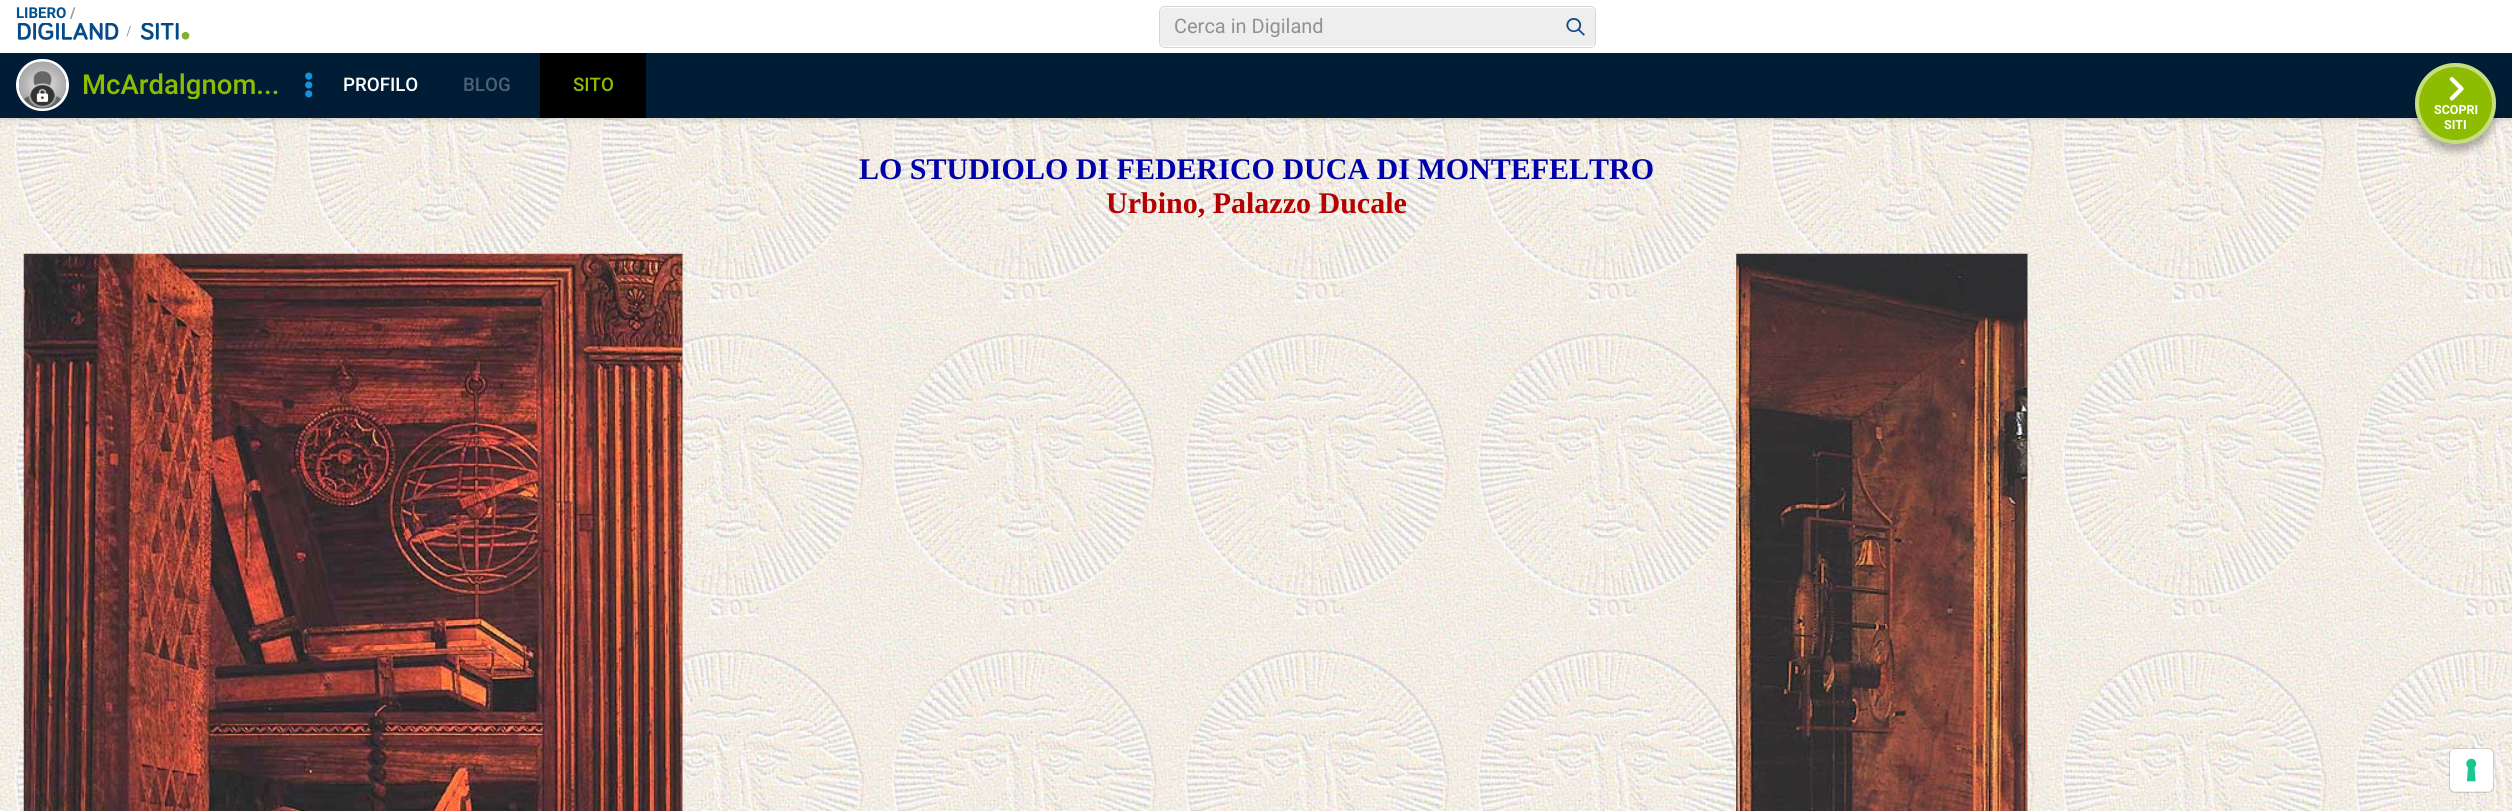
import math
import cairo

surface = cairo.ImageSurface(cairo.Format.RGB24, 2512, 811)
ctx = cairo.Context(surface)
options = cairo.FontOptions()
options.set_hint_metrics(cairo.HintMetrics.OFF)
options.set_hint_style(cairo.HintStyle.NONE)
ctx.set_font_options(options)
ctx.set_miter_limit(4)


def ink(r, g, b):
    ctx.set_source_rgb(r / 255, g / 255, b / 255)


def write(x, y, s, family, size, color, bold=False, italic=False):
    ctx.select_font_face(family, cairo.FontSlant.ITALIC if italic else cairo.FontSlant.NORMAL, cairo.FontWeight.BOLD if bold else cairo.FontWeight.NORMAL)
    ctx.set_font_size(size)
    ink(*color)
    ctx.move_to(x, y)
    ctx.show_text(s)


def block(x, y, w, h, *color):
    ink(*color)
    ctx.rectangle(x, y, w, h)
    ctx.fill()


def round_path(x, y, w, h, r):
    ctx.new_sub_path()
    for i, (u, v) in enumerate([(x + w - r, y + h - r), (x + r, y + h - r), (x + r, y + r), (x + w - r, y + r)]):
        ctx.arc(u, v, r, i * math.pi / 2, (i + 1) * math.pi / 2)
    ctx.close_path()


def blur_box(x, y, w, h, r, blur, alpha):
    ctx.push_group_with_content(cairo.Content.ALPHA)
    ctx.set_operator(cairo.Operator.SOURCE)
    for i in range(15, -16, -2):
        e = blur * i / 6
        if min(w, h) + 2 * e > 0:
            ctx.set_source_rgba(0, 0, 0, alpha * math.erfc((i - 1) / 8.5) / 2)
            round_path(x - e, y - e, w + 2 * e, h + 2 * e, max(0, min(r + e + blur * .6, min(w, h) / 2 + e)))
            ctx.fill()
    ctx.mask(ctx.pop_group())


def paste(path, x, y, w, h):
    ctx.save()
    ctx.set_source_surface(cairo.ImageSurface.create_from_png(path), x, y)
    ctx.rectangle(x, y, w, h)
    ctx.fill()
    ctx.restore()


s1 = dict(family="Roboto", size=15, color=(0, 82, 143), bold=True)
s2 = dict(family="Roboto", size=15, color=(153, 153, 153), bold=True)
s3 = dict(family="Roboto", size=20, color=(145, 145, 145))
s4 = dict(family="Roboto Medium", size=27.5, color=(142, 188, 0))
s5 = dict(family="Roboto Medium", size=18.75, color=(255, 255, 255))
s6 = dict(family="Roboto Medium", size=18.75, color=(77, 97, 114))
s7 = dict(family="Roboto Medium", size=18.75, color=(142, 188, 0))
s8 = dict(family="Roboto", size=12.5, color=(255, 255, 255), bold=True)
s9 = dict(family="Liberation Serif", size=30, color=(0, 0, 170), bold=True)
s10 = dict(family="Liberation Serif", size=30, color=(179, 0, 0), bold=True)

ink(255, 255, 255)
ctx.paint()
paste("pic1.png", 0, 118, 2512, 693)
ink(0, 0, 0)
blur_box(0, 0, 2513, 118, 0, 4, 0.2)
block(0, 0, 2512, 53, 255, 255, 255)
write(16, 18, "LIBERO", **s1)
write(70, 18, "/", **s2)
paste("pic2.png", 17, 23, 102, 17)
paste("pic3.png", 126, 25, 5, 12)
paste("pic4.png", 140, 23, 50, 17)
ink(238, 238, 238)
round_path(1160, 8, 435, 38, 5)
ctx.fill()
round_path(1159.5, 6.5, 436, 41, 5.5)
ink(213, 213, 213)
ctx.set_line_width(1)
ctx.stroke()
write(1174, 33, "Cerca in Digiland", **s3)
paste("pic5.png", 1566, 18, 19, 18)
block(0, 53, 2512, 65, 0, 29, 53)
round_path(17.5, 60.5, 50, 49, 24.5)
ink(255, 255, 255)
ctx.set_line_width(3)
ctx.stroke()
paste("pic6.png", 19, 61, 47, 48)
ctx.save()
ctx.rectangle(83, 71, 200, 28)
ctx.clip()
write(82, 94, "McArdalgnom...", **s4)
ctx.restore()
paste("pic7.png", 305, 72, 8, 26)
write(343, 91, "PROFILO", **s5)
write(463, 91, "BLOG", **s6)
block(540, 53, 106, 65, 0, 0, 0)
write(573, 91, "SITO", **s7)
ink(0, 0, 0)
blur_box(2415, 70, 81, 81, 40.5, 4, 0.3)
ink(142, 188, 0)
ctx.arc(2455.5, 103.5, 40.5, 0, 2 * math.pi)
ctx.fill()
ctx.arc(2455.5, 103.5, 38.5, 0, 2 * math.pi)
ctx.set_source_rgba(1, 1, 1, 0.5)
ctx.set_line_width(4)
ctx.stroke()
paste("pic8.png", 2449, 77, 15, 24)
write(2434, 114, "SCOPRI", **s8)
write(2444, 129, "SITI", **s8)
write(859, 179, "LO STUDIOLO DI FEDERICO DUCA DI MONTEFELTRO", **s9)
write(1106, 213, "Urbino, Palazzo Ducale", **s10)
paste("pic9.png", 23, 253, 660, 558)
paste("pic10.png", 1736, 253, 292, 558)
round_path(2449.5, 748.5, 44, 44, 5.5)
ctx.set_source_rgba(0, 0, 0, 0.15)
ctx.set_line_width(1)
ctx.stroke()
ink(255, 255, 255)
round_path(2450, 749, 43, 42, 5)
ctx.fill()
paste("pic11.png", 2466, 758, 11, 24)
surface.write_to_png("screenshot.png")
